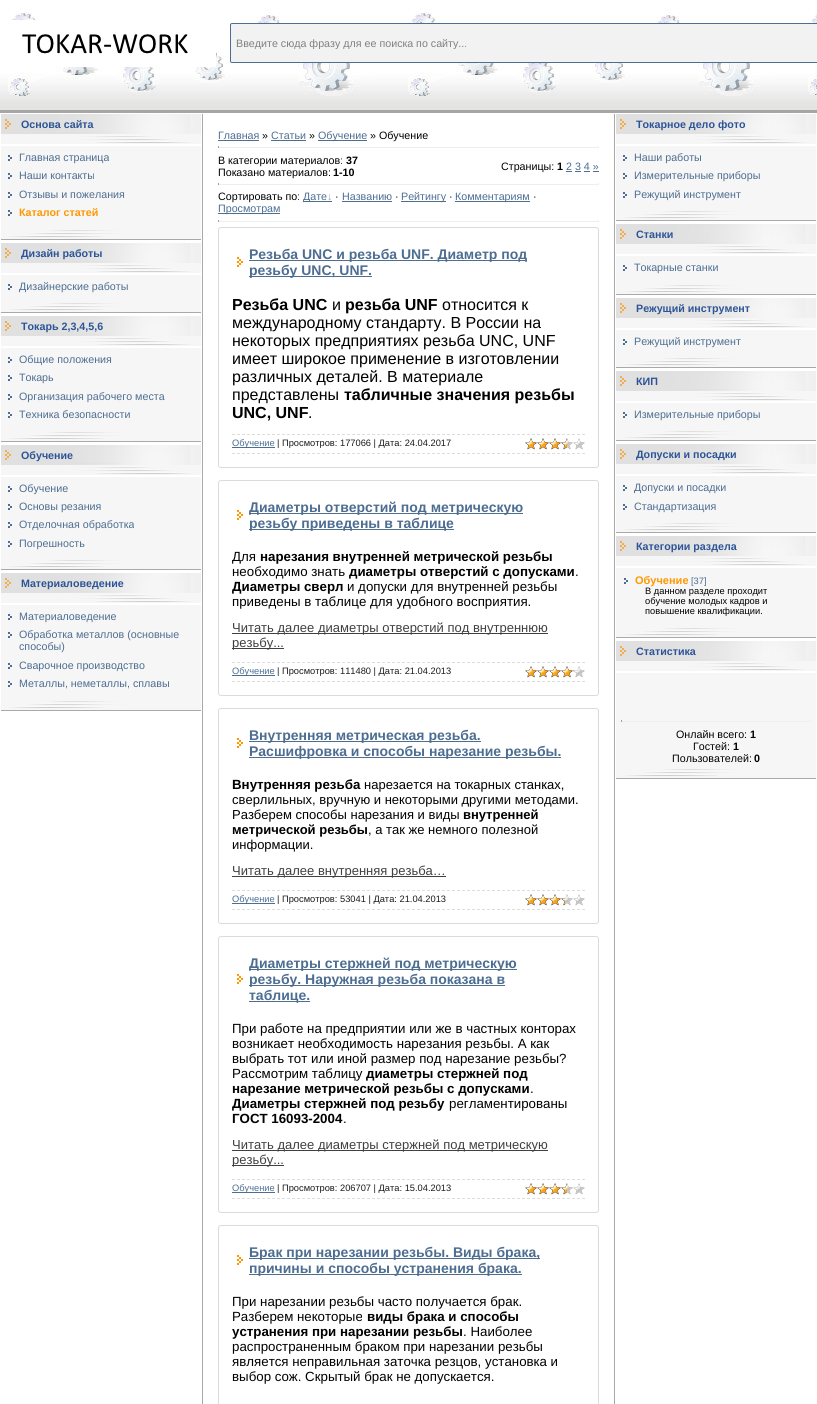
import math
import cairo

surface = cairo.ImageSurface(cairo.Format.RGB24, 817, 1404)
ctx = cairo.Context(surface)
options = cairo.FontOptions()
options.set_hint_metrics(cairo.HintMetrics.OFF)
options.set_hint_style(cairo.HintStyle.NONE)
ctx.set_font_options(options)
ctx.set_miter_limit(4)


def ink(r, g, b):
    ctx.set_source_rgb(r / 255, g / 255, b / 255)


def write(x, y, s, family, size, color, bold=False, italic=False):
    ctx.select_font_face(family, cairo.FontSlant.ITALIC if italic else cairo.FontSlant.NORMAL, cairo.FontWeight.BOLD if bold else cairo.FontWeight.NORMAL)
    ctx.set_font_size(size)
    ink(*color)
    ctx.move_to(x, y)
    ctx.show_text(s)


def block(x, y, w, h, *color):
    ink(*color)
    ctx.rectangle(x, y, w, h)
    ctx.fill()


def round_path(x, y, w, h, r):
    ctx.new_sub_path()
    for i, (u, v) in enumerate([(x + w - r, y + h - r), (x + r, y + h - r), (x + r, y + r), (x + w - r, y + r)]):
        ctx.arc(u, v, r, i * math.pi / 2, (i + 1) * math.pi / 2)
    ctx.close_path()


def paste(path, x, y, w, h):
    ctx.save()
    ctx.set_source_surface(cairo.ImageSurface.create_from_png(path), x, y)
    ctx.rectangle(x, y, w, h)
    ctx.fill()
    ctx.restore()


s1 = dict(family="Liberation Sans", size=10.7, color=(128, 128, 128))
s2 = dict(family="Liberation Sans", size=10.7, color=(44, 84, 151), bold=True)
s3 = dict(family="Liberation Sans", size=10.7, color=(77, 109, 145))
s4 = dict(family="Liberation Sans", size=10.7, color=(255, 152, 0), bold=True)
s5 = dict(family="Liberation Sans", size=10.7, color=(0, 0, 0))
s6 = dict(family="Liberation Sans", size=10.7, color=(0, 0, 0), bold=True)
s7 = dict(family="Liberation Sans", size=10.7, color=(160, 160, 160))
s8 = dict(family="Liberation Sans", size=14, color=(77, 109, 145), bold=True)
s9 = dict(family="Liberation Sans", size=16, color=(0, 0, 0), bold=True)
s10 = dict(family="Liberation Sans", size=16, color=(0, 0, 0))
s11 = dict(family="Liberation Sans", size=9.3, color=(77, 109, 145))
s12 = dict(family="Liberation Sans", size=9.3, color=(26, 26, 26))
s13 = dict(family="Liberation Sans", size=13.3, color=(0, 0, 0))
s14 = dict(family="Liberation Sans", size=13.3, color=(0, 0, 0), bold=True)
s15 = dict(family="Liberation Sans", size=13, color=(64, 64, 64))
s16 = dict(family="Liberation Sans", size=13, color=(0, 0, 0))
s17 = dict(family="Liberation Sans", size=13, color=(0, 0, 0), bold=True)
s18 = dict(family="Liberation Sans", size=11, color=(255, 152, 0), bold=True)
s19 = dict(family="Liberation Sans", size=9.3, color=(0, 0, 0))

ink(255, 255, 255)
ctx.paint()
paste("pic1.png", 0, 8, 817, 102)
paste("pic2.png", 9, 20, 207, 47)
ink(242, 242, 242)
round_path(230.5, 23.5, 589, 39, 1.5)
ctx.fill_preserve()
ink(77, 109, 145)
ctx.set_line_width(1)
ctx.stroke()
ctx.save()
ctx.rectangle(236, 37, 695, 12)
ctx.clip()
write(236, 47, "Введите сюда фразу для ее поиска по сайту...", **s1)
ctx.restore()
block(0, 110, 817, 3, 166, 166, 166)
paste("pic3.png", 1, 114, 200, 20)
write(21, 128, "Основа сайта", **s2)
paste("pic4.png", 1, 134, 200, 10)
block(1, 146, 200, 84, 246, 246, 246)
paste("pic5.png", 8, 155, 4, 6)
write(19, 161, "Главная страница", **s3)
paste("pic5.png", 8, 173, 4, 6)
write(19, 179, "Наши контакты", **s3)
paste("pic5.png", 8, 192, 4, 6)
write(19, 198, "Отзывы и пожелания", **s3)
paste("pic5.png", 8, 210, 4, 6)
write(19, 216, "Каталог статей", **s4)
paste("pic6.png", 1, 230, 200, 10)
paste("pic3.png", 1, 243, 200, 20)
write(21, 257, "Дизайн работы", **s2)
paste("pic4.png", 1, 263, 200, 10)
block(1, 275, 200, 28, 246, 246, 246)
paste("pic5.png", 8, 284, 4, 6)
write(19, 290, "Дизайнерские работы", **s3)
paste("pic6.png", 1, 303, 200, 10)
paste("pic3.png", 1, 316, 200, 20)
write(21, 330, "Токарь 2,3,4,5,6", **s2)
paste("pic4.png", 1, 336, 200, 10)
block(1, 348, 200, 84, 246, 246, 246)
paste("pic5.png", 8, 357, 4, 6)
write(19, 363, "Общие положения", **s3)
paste("pic5.png", 8, 375, 4, 6)
write(19, 381, "Токарь", **s3)
paste("pic5.png", 8, 394, 4, 6)
write(19, 400, "Организация рабочего места", **s3)
paste("pic5.png", 8, 412, 4, 6)
write(19, 418, "Техника безопасности", **s3)
paste("pic6.png", 1, 432, 200, 10)
paste("pic3.png", 1, 445, 200, 20)
write(21, 459, "Обучение", **s2)
paste("pic4.png", 1, 465, 200, 10)
block(1, 477, 200, 83, 246, 246, 246)
paste("pic5.png", 8, 486, 4, 6)
write(19, 492, "Обучение", **s3)
paste("pic5.png", 8, 504, 4, 6)
write(19, 510, "Основы резания", **s3)
paste("pic5.png", 8, 522, 4, 6)
write(19, 528, "Отделочная обработка", **s3)
paste("pic5.png", 8, 541, 4, 6)
write(19, 547, "Погрешность", **s3)
paste("pic6.png", 1, 560, 200, 10)
paste("pic3.png", 1, 573, 200, 20)
write(21, 587, "Материаловедение", **s2)
paste("pic4.png", 1, 593, 200, 10)
block(1, 605, 200, 96, 246, 246, 246)
paste("pic5.png", 8, 614, 4, 6)
write(19, 620, "Материаловедение", **s3)
paste("pic5.png", 8, 632, 4, 6)
write(19, 638, "Обработка металлов (основные", **s3)
write(19, 650, "способы)", **s3)
paste("pic5.png", 8, 663, 4, 6)
write(19, 669, "Сварочное производство", **s3)
paste("pic5.png", 8, 681, 4, 6)
write(19, 687, "Металлы, неметаллы, сплавы", **s3)
paste("pic6.png", 1, 701, 200, 10)
block(614, 114, 1, 1290, 169, 169, 169)
block(202, 114, 1, 1290, 169, 169, 169)
write(218, 139, "Главная", **s3)
block(218, 140, 41, 1, 77, 109, 145)
write(262, 139, "»", **s5)
write(271, 139, "Статьи", **s3)
block(271, 140, 35, 1, 77, 109, 145)
write(309, 139, "»", **s5)
block(318, 140, 49, 1, 77, 109, 145)
write(318, 139, "Обучение", **s3)
write(370, 139, "» Обучение", **s5)
block(598, 146, 1, 2, 238, 238, 238)
block(218, 147, 381, 1, 238, 238, 238)
block(218, 146, 1, 2, 159, 159, 159)
write(218, 164, "В категории материалов:", **s5)
write(346, 164, "37", **s6)
write(218, 176, "Показано материалов:", **s5)
write(333, 176, "1-10", **s6)
write(501, 170, "Страницы:", **s5)
write(557, 170, "1", **s6)
write(566, 170, "2 3 4 »", **s3)
block(566, 171, 6, 1, 77, 109, 145)
block(575, 171, 6, 1, 77, 109, 145)
block(584, 171, 6, 1, 77, 109, 145)
block(593, 171, 6, 1, 77, 109, 145)
block(598, 183, 1, 2, 238, 238, 238)
block(218, 184, 381, 1, 238, 238, 238)
block(218, 183, 1, 2, 159, 159, 159)
write(218, 200, "Сортировать по:", **s5)
block(303, 201, 29, 1, 77, 109, 145)
write(303, 200, "Дате", **s3)
write(327, 200, "↓", **s7)
write(335, 200, "·", **s5)
write(342, 200, "Названию", **s3)
block(342, 201, 50, 1, 77, 109, 145)
write(395, 200, "·", **s5)
block(401, 201, 45, 1, 77, 109, 145)
write(401, 200, "Рейтингу", **s3)
write(449, 200, "·", **s5)
block(455, 201, 75, 1, 77, 109, 145)
write(455, 200, "Комментариям", **s3)
write(533, 200, "·", **s5)
block(218, 213, 62, 1, 77, 109, 145)
write(218, 212, "Просмотрам", **s3)
block(598, 220, 1, 2, 238, 238, 238)
block(218, 221, 381, 1, 238, 238, 238)
block(218, 220, 1, 2, 159, 159, 159)
round_path(218.5, 227.5, 380, 240, 2.5)
ink(219, 219, 219)
ctx.stroke()
paste("pic7.png", 237, 257, 6, 10)
block(249, 260, 278, 1, 77, 109, 145)
write(249, 259, "Резьба UNC и резьба UNF. Диаметр под", **s8)
block(249, 276, 123, 1, 77, 109, 145)
write(249, 275, "резьбу UNC, UNF.", **s8)
write(232, 310, "Резьба UNC", **s9)
write(332, 310, "и", **s10)
write(345, 310, "резьба UNF", **s9)
write(442, 310, "относится к", **s10)
write(232, 328, "международному стандарту. В России на", **s10)
write(232, 346, "некоторых предприятиях резьба UNC, UNF", **s10)
write(232, 364, "имеет широкое применение в изготовлении", **s10)
write(232, 382, "различных деталей. В материале", **s10)
write(232, 400, "представлены", **s10)
write(344, 400, "табличные значения резьбы", **s9)
write(232, 418, "UNC, UNF", **s9)
write(308, 418, ".", **s10)
ctx.new_path()
ctx.move_to(232, 434.5)
ctx.line_to(585, 434.5)
ink(221, 221, 221)
ctx.set_dash([3, 2])
ctx.stroke()
ctx.new_path()
ctx.move_to(232, 453.5)
ctx.line_to(585, 453.5)
ctx.stroke()
block(232, 447, 43, 1, 77, 109, 145)
write(232, 446, "Обучение", **s11)
write(277, 446, "| Просмотров: 177066 | Дата: 24.04.2017", **s12)
paste("pic8.png", 525, 438, 60, 12)
paste("pic9.png", 525, 438, 42, 12)
round_path(218.5, 480.5, 380, 215, 2.5)
ink(219, 219, 219)
ctx.set_dash([])
ctx.stroke()
paste("pic7.png", 237, 510, 6, 10)
block(249, 513, 274, 1, 77, 109, 145)
write(249, 512, "Диаметры отверстий под метрическую", **s8)
block(249, 529, 205, 1, 77, 109, 145)
write(249, 528, "резьбу приведены в таблице", **s8)
write(232, 561, "Для", **s13)
write(260, 561, "нарезания внутренней метрической резьбы", **s14)
write(232, 576, "необходимо знать", **s13)
write(349, 576, "диаметры отверстий с допусками", **s14)
write(575, 576, ".", **s13)
write(232, 591, "Диаметры сверл", **s14)
write(347, 591, "и допуски для внутренней резьбы", **s13)
write(232, 606, "приведены в таблице для удобного восприятия.", **s13)
block(232, 633, 316, 1, 64, 64, 64)
write(232, 632, "Читать далее диаметры отверстий под внутреннюю", **s15)
block(232, 648, 52, 1, 64, 64, 64)
write(232, 647, "резьбу...", **s15)
ctx.new_path()
ctx.move_to(232, 662.5)
ctx.line_to(585, 662.5)
ink(221, 221, 221)
ctx.set_dash([3, 2])
ctx.stroke()
ctx.new_path()
ctx.move_to(232, 681.5)
ctx.line_to(585, 681.5)
ctx.stroke()
block(232, 675, 43, 1, 77, 109, 145)
write(232, 674, "Обучение", **s11)
write(277, 674, "| Просмотров: 111480 | Дата: 21.04.2013", **s12)
paste("pic8.png", 525, 666, 60, 12)
paste("pic10.png", 525, 666, 49, 12)
round_path(218.5, 708.5, 380, 215, 2.5)
ink(219, 219, 219)
ctx.set_dash([])
ctx.stroke()
paste("pic7.png", 237, 738, 6, 10)
block(249, 741, 232, 1, 77, 109, 145)
write(249, 740, "Внутренняя метрическая резьба.", **s8)
block(249, 757, 312, 1, 77, 109, 145)
write(249, 756, "Расшифровка и способы нарезание резьбы.", **s8)
write(232, 789, "Внутренняя резьба", **s14)
write(364, 789, "нарезается на токарных станках,", **s16)
write(232, 804, "сверлильных, вручную и некоторыми другими методами.", **s16)
write(232, 819, "Разберем способы нарезания и виды", **s16)
write(463, 819, "внутренней", **s17)
write(232, 834, "метрической резьбы", **s17)
write(368, 834, ", а так же немного полезной", **s16)
write(232, 849, "информации.", **s16)
block(232, 876, 214, 1, 64, 64, 64)
write(232, 875, "Читать далее внутренняя резьба…", **s15)
ctx.new_path()
ctx.move_to(232, 890.5)
ctx.line_to(585, 890.5)
ink(221, 221, 221)
ctx.set_dash([3, 2])
ctx.stroke()
ctx.new_path()
ctx.move_to(232, 909.5)
ctx.line_to(585, 909.5)
ctx.stroke()
block(232, 903, 43, 1, 77, 109, 145)
write(232, 902, "Обучение", **s11)
write(277, 902, "| Просмотров: 53041 | Дата: 21.04.2013", **s12)
paste("pic8.png", 525, 894, 60, 12)
paste("pic11.png", 525, 894, 40, 12)
round_path(218.5, 936.5, 380, 276, 2.5)
ink(219, 219, 219)
ctx.set_dash([])
ctx.stroke()
paste("pic7.png", 237, 974, 6, 10)
block(249, 969, 268, 1, 77, 109, 145)
write(249, 968, "Диаметры стержней под метрическую", **s8)
block(249, 985, 256, 1, 77, 109, 145)
write(249, 984, "резьбу. Наружная резьба показана в", **s8)
block(249, 1001, 61, 1, 77, 109, 145)
write(249, 1000, "таблице.", **s8)
write(232, 1033, "При работе на предприятии или же в частных конторах", **s13)
write(232, 1048, "возникает необходимость нарезания резьбы. А как", **s13)
write(232, 1063, "выбрать тот или иной размер под нарезание резьбы?", **s13)
write(232, 1078, "Рассмотрим таблицу", **s13)
write(366, 1078, "диаметры стержней под", **s14)
write(232, 1093, "нарезание метрической резьбы с допусками", **s14)
write(530, 1093, ".", **s13)
write(232, 1108, "Диаметры стержней под резьбу", **s14)
write(449, 1108, "регламентированы", **s13)
write(232, 1123, "ГОСТ 16093-2004", **s14)
write(343, 1123, ".", **s13)
block(232, 1150, 316, 1, 64, 64, 64)
write(232, 1149, "Читать далее диаметры стержней под метрическую", **s15)
block(232, 1165, 52, 1, 64, 64, 64)
write(232, 1164, "резьбу...", **s15)
ctx.new_path()
ctx.move_to(232, 1179.5)
ctx.line_to(585, 1179.5)
ink(221, 221, 221)
ctx.set_dash([3, 2])
ctx.stroke()
ctx.new_path()
ctx.move_to(232, 1198.5)
ctx.line_to(585, 1198.5)
ctx.stroke()
block(232, 1192, 43, 1, 77, 109, 145)
write(232, 1191, "Обучение", **s11)
write(277, 1191, "| Просмотров: 206707 | Дата: 15.04.2013", **s12)
paste("pic8.png", 525, 1183, 60, 12)
paste("pic9.png", 525, 1183, 42, 12)
round_path(218.5, 1225.5, 380, 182, 2.5)
ink(219, 219, 219)
ctx.set_dash([])
ctx.stroke()
paste("pic7.png", 237, 1255, 6, 10)
block(249, 1258, 291, 1, 77, 109, 145)
write(249, 1257, "Брак при нарезании резьбы. Виды брака,", **s8)
block(249, 1274, 273, 1, 77, 109, 145)
write(249, 1273, "причины и способы устранения брака.", **s8)
write(232, 1306, "При нарезании резьбы часто получается брак.", **s13)
write(232, 1321, "Разберем некоторые", **s13)
write(367, 1321, "виды брака и способы", **s14)
write(232, 1336, "устранения при нарезании резьбы", **s14)
write(463, 1336, ". Наиболее", **s13)
write(232, 1351, "распространенным браком при нарезании резьбы", **s13)
write(232, 1366, "является неправильная заточка резцов, установка и", **s13)
write(232, 1381, "выбор сож. Скрытый брак не допускается.", **s13)
paste("pic3.png", 616, 114, 200, 20)
write(636, 128, "Токарное дело фото", **s2)
paste("pic4.png", 616, 134, 200, 10)
block(616, 146, 200, 65, 246, 246, 246)
paste("pic5.png", 623, 155, 4, 6)
write(634, 161, "Наши работы", **s3)
paste("pic5.png", 623, 173, 4, 6)
write(634, 179, "Измерительные приборы", **s3)
paste("pic5.png", 623, 192, 4, 6)
write(634, 198, "Режущий инструмент", **s3)
paste("pic6.png", 616, 211, 200, 10)
paste("pic3.png", 616, 224, 200, 20)
write(636, 238, "Станки", **s2)
paste("pic4.png", 616, 244, 200, 10)
block(616, 256, 200, 29, 246, 246, 246)
paste("pic5.png", 623, 265, 4, 6)
write(634, 271, "Токарные станки", **s3)
paste("pic6.png", 616, 285, 200, 10)
paste("pic3.png", 616, 298, 200, 20)
write(636, 312, "Режущий инструмент", **s2)
paste("pic4.png", 616, 318, 200, 10)
block(616, 330, 200, 28, 246, 246, 246)
paste("pic5.png", 623, 339, 4, 6)
write(634, 345, "Режущий инструмент", **s3)
paste("pic6.png", 616, 358, 200, 10)
paste("pic3.png", 616, 371, 200, 20)
write(636, 385, "КИП", **s2)
paste("pic4.png", 616, 391, 200, 10)
block(616, 403, 200, 28, 246, 246, 246)
paste("pic5.png", 623, 412, 4, 6)
write(634, 418, "Измерительные приборы", **s3)
paste("pic6.png", 616, 431, 200, 10)
paste("pic3.png", 616, 444, 200, 20)
write(636, 458, "Допуски и посадки", **s2)
paste("pic4.png", 616, 464, 200, 10)
block(616, 476, 200, 47, 246, 246, 246)
paste("pic5.png", 623, 485, 4, 6)
write(634, 491, "Допуски и посадки", **s3)
paste("pic5.png", 623, 504, 4, 6)
write(634, 510, "Стандартизация", **s3)
paste("pic6.png", 616, 523, 200, 10)
paste("pic3.png", 616, 536, 200, 20)
write(636, 550, "Категории раздела", **s2)
paste("pic4.png", 616, 556, 200, 10)
block(616, 568, 200, 60, 246, 246, 246)
paste("pic5.png", 624, 578, 4, 6)
write(635, 584, "Обучение", **s18)
write(691, 584, "[37]", **s11)
write(645, 594, "В данном разделе проходит", **s19)
write(645, 604, "обучение молодых кадров и", **s19)
write(645, 614, "повышение квалификации.", **s19)
paste("pic6.png", 616, 628, 200, 10)
paste("pic3.png", 616, 641, 200, 20)
write(636, 655, "Статистика", **s2)
paste("pic4.png", 616, 661, 200, 10)
block(616, 673, 200, 96, 246, 246, 246)
block(810, 720, 1, 2, 238, 238, 238)
block(621, 721, 190, 1, 238, 238, 238)
block(621, 720, 1, 2, 159, 159, 159)
write(676, 738, "Онлайн всего:", **s5)
write(750, 738, "1", **s6)
write(693, 750, "Гостей:", **s5)
write(733, 750, "1", **s6)
write(672, 762, "Пользователей:", **s5)
write(754, 762, "0", **s6)
paste("pic6.png", 616, 769, 200, 10)
surface.write_to_png("screenshot.png")
